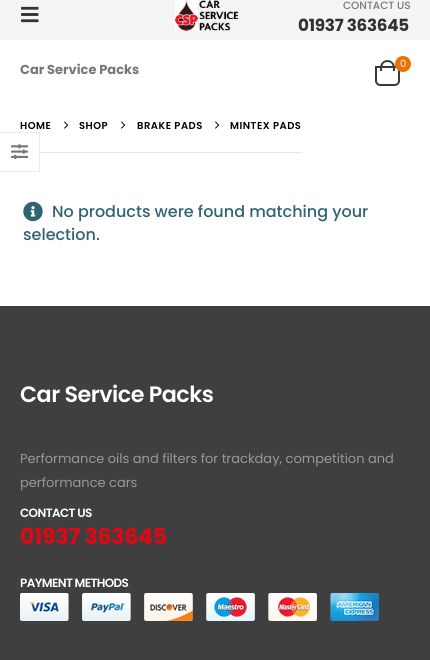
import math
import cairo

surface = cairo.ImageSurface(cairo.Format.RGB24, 430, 660)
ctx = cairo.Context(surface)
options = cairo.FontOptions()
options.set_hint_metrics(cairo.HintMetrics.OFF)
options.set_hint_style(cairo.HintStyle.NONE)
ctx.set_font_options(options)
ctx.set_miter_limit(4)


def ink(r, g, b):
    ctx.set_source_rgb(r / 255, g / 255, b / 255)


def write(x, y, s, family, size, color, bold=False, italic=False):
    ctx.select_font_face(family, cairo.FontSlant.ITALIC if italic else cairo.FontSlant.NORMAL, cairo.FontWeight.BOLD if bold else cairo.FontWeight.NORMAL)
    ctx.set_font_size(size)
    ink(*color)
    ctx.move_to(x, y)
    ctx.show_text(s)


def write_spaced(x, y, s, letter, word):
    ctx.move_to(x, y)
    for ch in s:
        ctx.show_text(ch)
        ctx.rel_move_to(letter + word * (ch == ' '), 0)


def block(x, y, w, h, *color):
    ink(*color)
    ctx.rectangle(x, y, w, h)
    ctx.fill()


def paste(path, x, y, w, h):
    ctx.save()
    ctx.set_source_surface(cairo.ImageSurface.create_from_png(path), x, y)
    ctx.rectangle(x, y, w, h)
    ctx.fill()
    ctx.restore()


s1 = dict(family="Poppins Medium", size=10.5, color=(119, 119, 119))
s2 = dict(family="Poppins", size=13, color=(119, 119, 119), bold=True)
s3 = dict(family="Poppins", size=10, color=(255, 255, 255))
s4 = dict(family="Poppins Medium", size=16, color=(47, 100, 115))
s5 = dict(family="Poppins", size=13, color=(153, 153, 153))

ink(255, 255, 255)
ctx.paint()
block(0, 0, 430, 40, 244, 244, 244)
paste("pic1.png", 21, 6, 18, 17)
paste("pic2.png", 175, 0, 64, 31)
write(343, 9, "CONTACT US", **s1)
ctx.select_font_face("Poppins", cairo.FontSlant.NORMAL, cairo.FontWeight.BOLD)
ctx.set_font_size(16.75)
ink(50, 50, 50)
write_spaced(298, 31, "01937 363645", -0.25, 0)
write(20, 74, "Car Service Packs", **s2)
ctx.new_path()
ctx.move_to(376, 67)
ctx.line_to(399, 67)
ctx.line_to(399, 81)
ctx.curve_to(399, 83, 397, 85, 395, 85)
ctx.line_to(380, 85)
ctx.curve_to(378, 85, 376, 83, 376, 81)
ctx.close_path()
ink(56, 59, 62)
ctx.stroke()
ctx.set_fill_rule(cairo.FillRule.EVEN_ODD)
ctx.new_path()
ctx.move_to(387.5, 60)
ctx.curve_to(391.5, 60, 395, 63.5, 395, 67.5)
ctx.line_to(395, 71)
ctx.line_to(380, 71)
ctx.line_to(380, 67.5)
ctx.curve_to(380, 63.5, 383.5, 60, 387.5, 60)
ctx.close_path()
ctx.move_to(387.5, 62)
ctx.curve_to(393, 62, 393, 67, 393, 71)
ctx.line_to(382, 71)
ctx.curve_to(382, 67, 382, 62, 387.5, 62)
ctx.close_path()
ctx.fill()
ink(236, 114, 0)
ctx.arc(403, 64, 8, 0, 2 * math.pi)
ctx.fill()
write(400, 67, "0", **s3)
block(40, 152, 262, 1, 231, 231, 231)
ctx.select_font_face("Poppins SemiBold")
ink(0, 0, 0)
write_spaced(20, 129, "HOME", 0.5, 0)
paste("pic3.png", 64, 121, 5, 8)
write_spaced(79, 129, "SHOP", 0.5, 0)
paste("pic3.png", 121, 121, 5, 8)
write_spaced(137, 129, "BRAKE PADS", 0.5, 0)
paste("pic3.png", 215, 121, 5, 8)
write_spaced(230, 129, "MINTEX PADS", 0.5, 0)
ink(235, 235, 235)
ctx.set_fill_rule(cairo.FillRule.WINDING)
ctx.new_path()
ctx.move_to(0, 132)
ctx.line_to(40, 132)
ctx.line_to(39, 133)
ctx.line_to(0, 133)
ctx.close_path()
ctx.fill()
ctx.set_source_rgba(0, 0, 0, 0.08)
ctx.new_path()
ctx.move_to(40, 132)
ctx.line_to(40, 172)
ctx.line_to(39, 171)
ctx.line_to(39, 133)
ctx.close_path()
ctx.fill()
ctx.new_path()
ctx.move_to(40, 172)
ctx.line_to(0, 172)
ctx.line_to(0, 171)
ctx.line_to(39, 171)
ctx.close_path()
ctx.fill()
paste("pic4.png", 11, 144, 17, 16)
paste("pic5.png", 23, 201, 20, 21)
write(52, 217, "No products were found matching your", **s4)
write(23, 240, "selection.", **s4)
block(0, 306, 430, 354, 64, 63, 63)
ctx.select_font_face("Poppins SemiBold")
ctx.set_font_size(22.25)
ink(255, 255, 255)
write_spaced(20, 402, "Car Service Packs", -0.5, 0)
write(20, 463, "Performance oils and filters for trackday, competition and", **s5)
write(20, 487, "performance cars", **s5)
ctx.select_font_face("Poppins SemiBold")
ctx.set_font_size(12)
ink(255, 255, 255)
write_spaced(20, 517, "CONTACT US", -0.6, 0)
ctx.select_font_face("Poppins", cairo.FontSlant.NORMAL, cairo.FontWeight.BOLD)
ctx.set_font_size(22)
ink(227, 6, 19)
write_spaced(20, 544, "01937 363645", -0.25, 0)
ctx.select_font_face("Poppins SemiBold")
ctx.set_font_size(12)
ink(255, 255, 255)
write_spaced(20, 587, "PAYMENT METHODS", -0.6, 0)
paste("pic6.png", 20, 593, 359, 28)
surface.write_to_png("screenshot.png")
